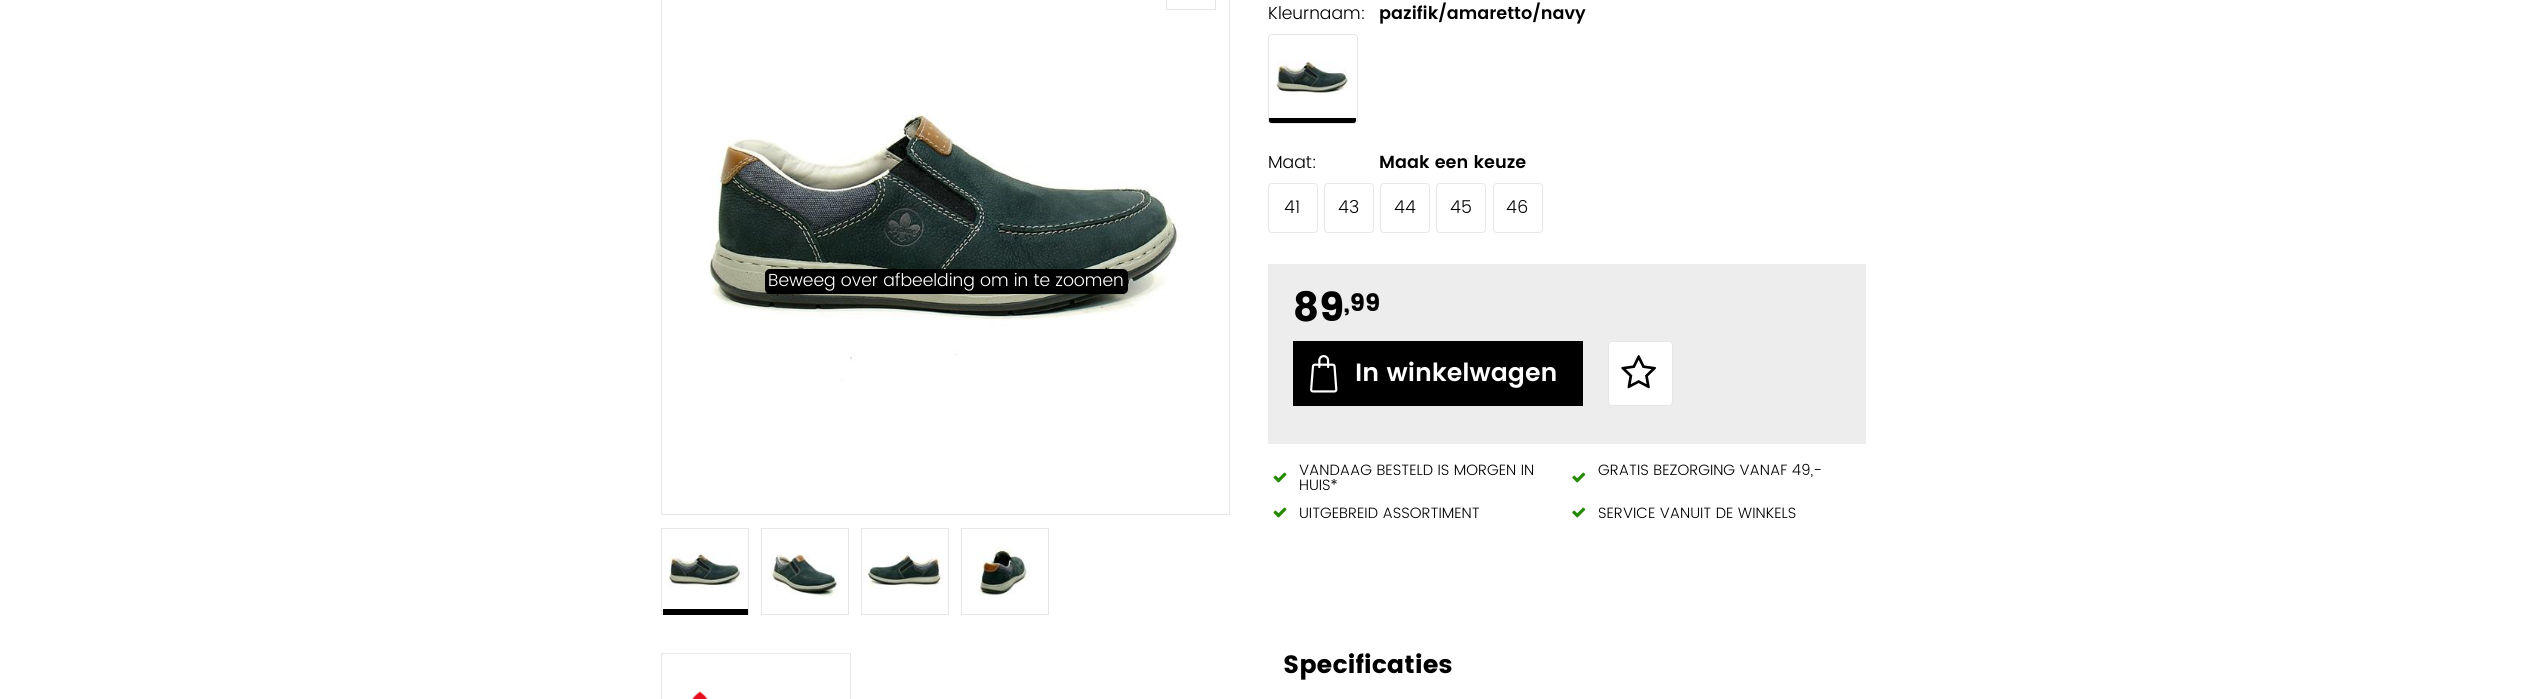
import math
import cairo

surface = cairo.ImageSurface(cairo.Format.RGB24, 2527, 699)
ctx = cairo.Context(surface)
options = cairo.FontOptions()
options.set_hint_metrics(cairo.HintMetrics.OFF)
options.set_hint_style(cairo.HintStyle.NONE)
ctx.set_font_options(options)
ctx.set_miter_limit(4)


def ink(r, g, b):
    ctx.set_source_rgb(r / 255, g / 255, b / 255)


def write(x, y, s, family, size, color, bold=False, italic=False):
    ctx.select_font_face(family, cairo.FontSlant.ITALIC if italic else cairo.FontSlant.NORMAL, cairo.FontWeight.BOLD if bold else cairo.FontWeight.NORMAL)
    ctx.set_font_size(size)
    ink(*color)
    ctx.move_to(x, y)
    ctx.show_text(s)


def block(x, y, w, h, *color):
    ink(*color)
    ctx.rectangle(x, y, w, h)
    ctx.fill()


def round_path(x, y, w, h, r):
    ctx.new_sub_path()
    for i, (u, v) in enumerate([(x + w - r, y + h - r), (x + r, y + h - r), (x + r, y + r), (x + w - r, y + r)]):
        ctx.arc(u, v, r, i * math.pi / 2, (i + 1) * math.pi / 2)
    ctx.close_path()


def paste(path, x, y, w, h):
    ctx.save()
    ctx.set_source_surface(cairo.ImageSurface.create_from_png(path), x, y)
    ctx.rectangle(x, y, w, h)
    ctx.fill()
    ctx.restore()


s1 = dict(family="Poppins Light", size=17.5, color=(255, 255, 255))
s2 = dict(family="Poppins Light", size=17.5, color=(0, 0, 0))
s3 = dict(family="Poppins SemiBold", size=17.5, color=(0, 0, 0))
s4 = dict(family="Poppins", size=40, color=(0, 0, 0), bold=True)
s5 = dict(family="Poppins", size=24, color=(0, 0, 0), bold=True)
s6 = dict(family="Poppins SemiBold", size=25, color=(255, 255, 255))
s7 = dict(family="Poppins Light", size=15, color=(0, 0, 0))
s8 = dict(family="Poppins", size=25, color=(0, 0, 0), bold=True)

ink(255, 255, 255)
ctx.paint()
ctx.rectangle(661.5, -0.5, 568, 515)
ink(230, 230, 230)
ctx.set_line_width(1)
ctx.stroke()
ctx.rectangle(1166.5, -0.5, 49, 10)
ctx.stroke()
paste("pic1.png", 706, 114, 476, 268)
ink(0, 0, 0)
round_path(765, 269, 363, 25, 5)
ctx.fill()
write(768, 286, "Beweeg over afbeelding om in te zoomen", **s1)
ctx.rectangle(661.5, 528.5, 87, 86)
ink(230, 230, 230)
ctx.stroke()
paste("pic2.png", 667, 553, 77, 35)
block(663, 609, 85, 6, 0, 0, 0)
ctx.rectangle(761.5, 528.5, 87, 86)
ink(230, 230, 230)
ctx.stroke()
paste("pic3.png", 769, 553, 69, 45)
ctx.rectangle(861.5, 528.5, 87, 86)
ctx.stroke()
paste("pic4.png", 863, 553, 81, 35)
ctx.rectangle(961.5, 528.5, 87, 86)
ctx.stroke()
paste("pic5.png", 976, 540, 54, 56)
write(1268, 19, "Kleurnaam:", **s2)
write(1379, 19, "pazifik/amaretto/navy", **s3)
round_path(1268.5, 34.5, 89, 89, 3.5)
ink(230, 230, 230)
ctx.stroke()
paste("pic6.png", 1275, 61, 77, 34)
ink(0, 0, 0)
ctx.new_path()
ctx.move_to(1269, 118)
ctx.line_to(1356, 118)
ctx.line_to(1356, 120.5)
ctx.curve_to(1356, 122, 1355, 123, 1353.5, 123)
ctx.line_to(1271.5, 123)
ctx.curve_to(1270, 123, 1269, 122, 1269, 120.5)
ctx.close_path()
ctx.fill()
write(1268, 168, "Maat:", **s2)
write(1379, 168, "Maak een keuze", **s3)
round_path(1268.5, 183.5, 49, 49, 3.5)
ink(230, 230, 230)
ctx.stroke()
write(1284, 213, "41", **s2)
round_path(1324.5, 183.5, 49, 49, 3.5)
ink(230, 230, 230)
ctx.stroke()
write(1338, 213, "43", **s2)
round_path(1380.5, 183.5, 49, 49, 3.5)
ink(230, 230, 230)
ctx.stroke()
write(1394, 213, "44", **s2)
round_path(1436.5, 183.5, 49, 49, 3.5)
ink(230, 230, 230)
ctx.stroke()
write(1450, 213, "45", **s2)
round_path(1493.5, 183.5, 49, 49, 3.5)
ink(230, 230, 230)
ctx.stroke()
write(1506, 213, "46", **s2)
block(1268, 264, 598, 180, 237, 237, 237)
write(1293, 321, "89", **s4)
write(1344, 311, ",99", **s5)
block(1293, 341, 290, 65, 0, 0, 0)
paste("pic7.png", 1310, 355, 28, 38)
write(1355, 381, "In winkelwagen", **s6)
round_path(1608.5, 341.5, 64, 64, 3.5)
ctx.fill_preserve()
ink(230, 230, 230)
ctx.stroke()
paste("pic8.png", 1621, 355, 36, 34)
paste("pic9.png", 1273, 472, 14, 11)
write(1299, 475, "VANDAAG BESTELD IS MORGEN IN", **s7)
write(1299, 490, "HUIS*", **s7)
paste("pic10.png", 1572, 472, 14, 11)
write(1598, 475, "GRATIS BEZORGING VANAF 49,-", **s7)
paste("pic9.png", 1273, 507, 14, 11)
write(1299, 518, "UITGEBREID ASSORTIMENT", **s7)
paste("pic10.png", 1572, 507, 14, 11)
write(1598, 518, "SERVICE VANUIT DE WINKELS", **s7)
ctx.rectangle(661.5, 653.5, 189, 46)
ink(230, 230, 230)
ctx.stroke()
paste("pic11.png", 663, 653, 187, 46)
write(1283, 673, "Specificaties", **s8)
surface.write_to_png("screenshot.png")
